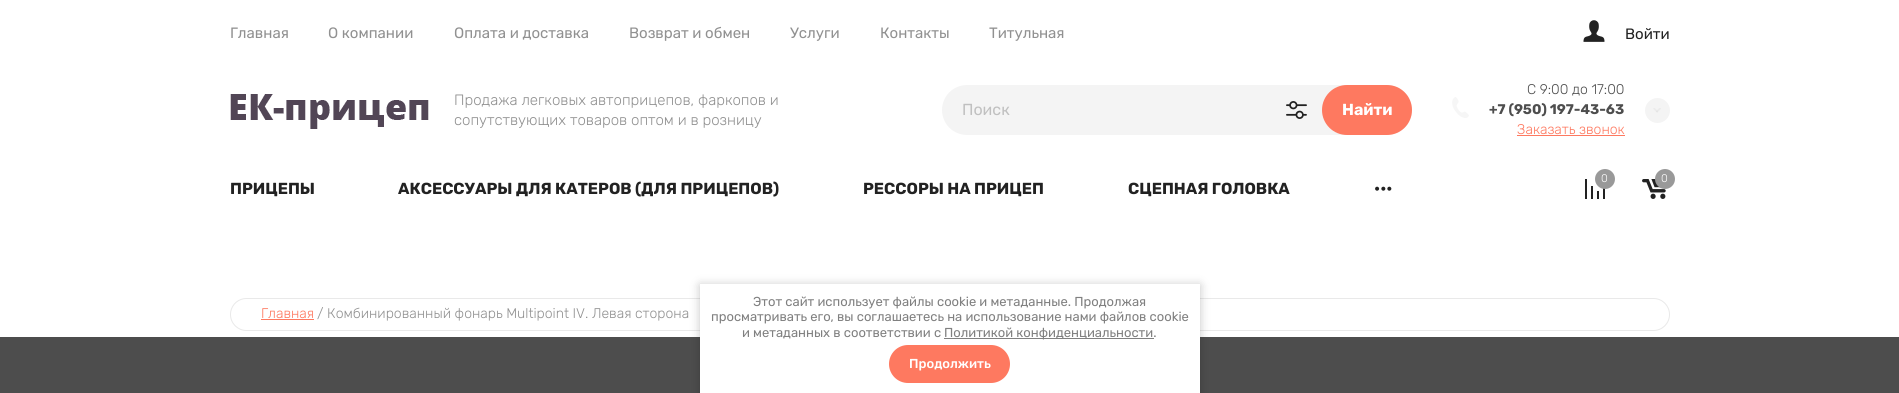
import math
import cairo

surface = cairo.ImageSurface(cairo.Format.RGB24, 1899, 393)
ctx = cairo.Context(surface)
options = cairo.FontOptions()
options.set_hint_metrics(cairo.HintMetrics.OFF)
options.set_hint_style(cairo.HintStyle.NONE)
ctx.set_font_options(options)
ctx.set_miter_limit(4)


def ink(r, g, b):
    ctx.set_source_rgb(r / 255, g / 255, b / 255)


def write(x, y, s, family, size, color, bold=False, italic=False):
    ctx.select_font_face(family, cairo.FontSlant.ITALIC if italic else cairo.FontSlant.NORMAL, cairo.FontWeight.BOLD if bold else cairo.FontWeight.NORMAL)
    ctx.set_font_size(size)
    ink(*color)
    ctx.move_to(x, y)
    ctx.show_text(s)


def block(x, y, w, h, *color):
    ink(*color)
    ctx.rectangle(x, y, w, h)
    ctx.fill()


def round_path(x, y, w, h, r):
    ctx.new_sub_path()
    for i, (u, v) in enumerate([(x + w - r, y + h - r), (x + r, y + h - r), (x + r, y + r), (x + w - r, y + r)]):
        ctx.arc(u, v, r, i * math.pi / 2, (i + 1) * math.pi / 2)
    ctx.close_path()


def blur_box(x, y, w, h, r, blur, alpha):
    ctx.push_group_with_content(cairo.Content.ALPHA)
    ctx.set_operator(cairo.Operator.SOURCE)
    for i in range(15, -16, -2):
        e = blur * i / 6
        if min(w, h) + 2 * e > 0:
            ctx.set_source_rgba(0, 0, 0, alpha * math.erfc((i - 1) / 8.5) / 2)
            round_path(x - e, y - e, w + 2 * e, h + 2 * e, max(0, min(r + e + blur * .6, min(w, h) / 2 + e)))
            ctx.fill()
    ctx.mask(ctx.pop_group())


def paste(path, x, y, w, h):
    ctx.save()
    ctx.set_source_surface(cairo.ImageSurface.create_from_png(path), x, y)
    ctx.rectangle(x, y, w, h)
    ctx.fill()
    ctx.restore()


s1 = dict(family="Rubik", size=15, color=(145, 145, 145))
s2 = dict(family="Rubik", size=15, color=(34, 34, 34))
s3 = dict(family="Rubik Light", size=15, color=(145, 145, 145))
s4 = dict(family="Rubik", size=16, color=(192, 192, 192))
s5 = dict(family="Rubik", size=16, color=(255, 255, 255), bold=True)
s6 = dict(family="Rubik Light", size=14, color=(78, 78, 78))
s7 = dict(family="Rubik", size=14, color=(78, 78, 78), bold=True)
s8 = dict(family="Rubik Light", size=14, color=(254, 121, 96))
s9 = dict(family="Rubik Light", size=11, color=(255, 255, 255))
s10 = dict(family="Rubik", size=16, color=(34, 34, 34), bold=True)
s11 = dict(family="Rubik Light", size=14, color=(145, 145, 145))
s12 = dict(family="Rubik", size=13, color=(128, 128, 128))
s13 = dict(family="Rubik Medium", size=13, color=(255, 255, 255))

ink(255, 255, 255)
ctx.paint()
block(0, 337, 1899, 56, 77, 77, 77)
write(230, 38, "Главная", **s1)
write(328, 38, "О компании", **s1)
write(454, 38, "Оплата и доставка", **s1)
write(629, 38, "Возврат и обмен", **s1)
write(790, 38, "Услуги", **s1)
write(880, 38, "Контакты", **s1)
write(989, 38, "Титульная", **s1)
paste("pic1.png", 1583, 20, 22, 22)
write(1625, 39, "Войти", **s2)
paste("pic2.png", 230, 94, 199, 35)
write(454, 105, "Продажа легковых автоприцепов, фаркопов и", **s3)
write(454, 125, "сопутствующих товаров оптом и в розницу", **s3)
ink(244, 244, 244)
round_path(942, 85, 470, 50, 25)
ctx.fill()
write(962, 115, "Поиск", **s4)
paste("pic3.png", 1286, 101, 21, 18)
ink(254, 121, 96)
round_path(1322, 85, 90, 50, 25)
ctx.fill()
write(1342, 115, "Найти", **s5)
paste("pic4.png", 1452, 97, 17, 21)
write(1527, 94, "C 9:00 до 17:00", **s6)
write(1489, 114, "+7 (950) 197-43-63", **s7)
write(1517, 134, "Заказать звонок", **s8)
block(1517, 135, 108, 1, 254, 121, 96)
ink(244, 244, 244)
ctx.new_path()
ctx.arc(1657.5, 110.5, 12.5, 0, 2 * math.pi)
ctx.fill()
paste("pic5.png", 1653, 108, 8, 5)
paste("pic6.png", 1585, 179, 20, 20)
ink(153, 153, 153)
ctx.arc(1605, 179, 10, 0, 2 * math.pi)
ctx.fill()
write(1601, 182, "0", **s9)
paste("pic7.png", 1642, 179, 24, 20)
ink(153, 153, 153)
ctx.arc(1665, 179, 10, 0, 2 * math.pi)
ctx.fill()
write(1661, 182, "0", **s9)
write(230, 194, "ПРИЦЕПЫ", **s10)
write(398, 194, "АКСЕССУАРЫ ДЛЯ КАТЕРОВ (ДЛЯ ПРИЦЕПОВ)", **s10)
write(863, 194, "РЕССОРЫ НА ПРИЦЕП", **s10)
write(1128, 194, "СЦЕПНАЯ ГОЛОВКА", **s10)
write(1374, 194, "•••", **s10)
round_path(230.5, 298.5, 1439, 32, 16)
ink(233, 233, 233)
ctx.set_line_width(1)
ctx.stroke()
write(261, 318, "Главная", **s8)
block(261, 319, 53, 1, 254, 121, 96)
write(317, 318, "/ Комбинированный фонарь Multipoint IV. Левая сторона", **s11)
ink(0, 0, 0)
blur_box(700, 285, 500, 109, 0, 5, 0.23)
block(700, 284, 500, 109, 255, 255, 255)
write(753, 306, "Этот сайт использует файлы cookie и метаданные. Продолжая", **s12)
write(711, 321, "просматривать его, вы соглашаетесь на использование нами файлов cookie", **s12)
write(742, 337, "и метаданных в соответствии с", **s12)
block(944, 338, 210, 1, 128, 128, 128)
write(944, 337, "Политикой конфиденциальности.", **s12)
ink(254, 121, 96)
round_path(889, 345, 121, 38, 19)
ctx.fill()
write(909, 368, "Продолжить", **s13)
surface.write_to_png("screenshot.png")
